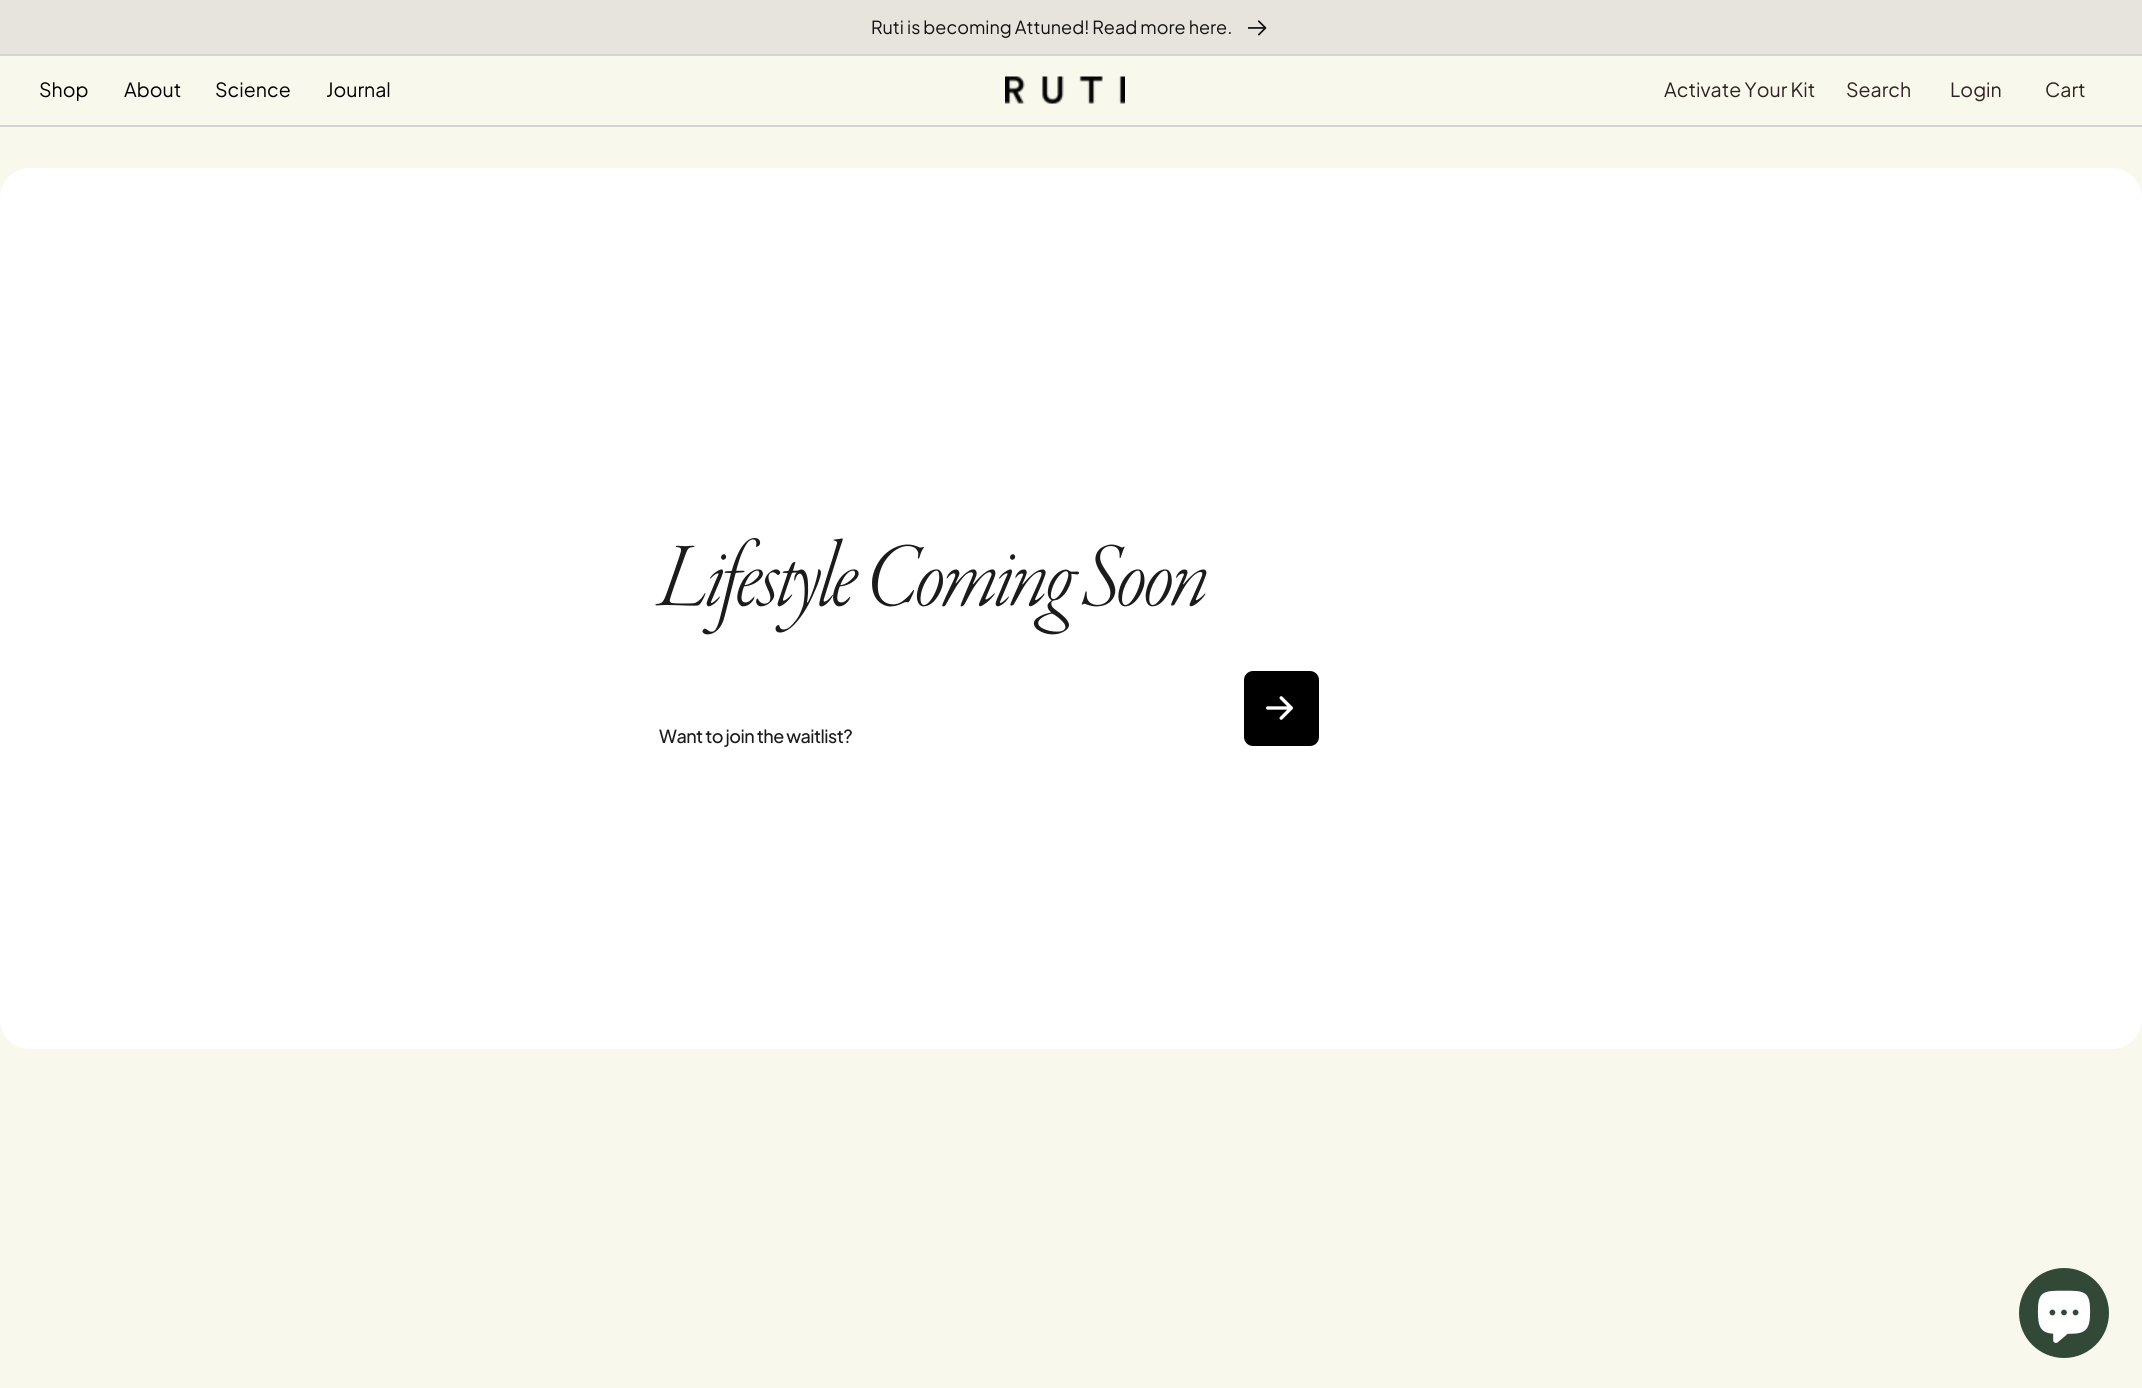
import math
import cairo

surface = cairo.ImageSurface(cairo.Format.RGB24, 2142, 1388)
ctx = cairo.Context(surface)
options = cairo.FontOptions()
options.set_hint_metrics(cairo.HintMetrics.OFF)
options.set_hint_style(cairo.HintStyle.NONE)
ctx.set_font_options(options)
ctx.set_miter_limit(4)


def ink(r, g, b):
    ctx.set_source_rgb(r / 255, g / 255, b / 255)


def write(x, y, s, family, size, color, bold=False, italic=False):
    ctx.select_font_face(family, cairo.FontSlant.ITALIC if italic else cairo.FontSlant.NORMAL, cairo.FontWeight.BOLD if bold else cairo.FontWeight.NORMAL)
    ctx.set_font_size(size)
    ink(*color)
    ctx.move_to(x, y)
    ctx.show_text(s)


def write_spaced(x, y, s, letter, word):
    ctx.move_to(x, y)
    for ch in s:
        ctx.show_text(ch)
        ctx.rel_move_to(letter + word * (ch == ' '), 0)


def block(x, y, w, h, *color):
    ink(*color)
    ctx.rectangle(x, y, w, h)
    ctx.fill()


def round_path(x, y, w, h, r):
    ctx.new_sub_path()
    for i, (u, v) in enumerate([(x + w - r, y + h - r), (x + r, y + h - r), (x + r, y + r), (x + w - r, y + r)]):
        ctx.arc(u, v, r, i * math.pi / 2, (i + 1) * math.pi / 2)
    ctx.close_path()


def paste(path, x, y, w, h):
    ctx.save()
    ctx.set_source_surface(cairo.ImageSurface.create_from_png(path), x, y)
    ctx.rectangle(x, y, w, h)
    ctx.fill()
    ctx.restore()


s1 = dict(family="Plus Jakarta Sans", size=18, color=(18, 18, 18))
s2 = dict(family="Plus Jakarta Sans", size=19.5, color=(0, 0, 0))
s3 = dict(family="Plus Jakarta Sans", size=19.5, color=(47, 34, 36))

ink(248, 249, 236)
ctx.paint()
block(0, 54, 2142, 2, 212, 212, 212)
block(0, 0, 2142, 54, 230, 228, 220)
write(871, 34, "Ruti is becoming Attuned! Read more here.", **s1)
paste("pic1.png", 1248, 20, 19, 16)
block(0, 125, 2142, 2, 212, 212, 212)
write(39, 97, "Shop", **s2)
write(124, 97, "About", **s2)
write(215, 97, "Science", **s2)
write(326, 97, "Journal", **s2)
paste("pic2.png", 1005, 76, 120, 28)
write(1664, 97, "Activate Your Kit", **s3)
write(1846, 97, "Search", **s3)
write(1950, 97, "Login", **s3)
write(2045, 97, "Cart", **s3)
ink(255, 255, 255)
round_path(0, 168, 2142, 881, 30)
ctx.fill()
ctx.select_font_face("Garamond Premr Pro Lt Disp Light", cairo.FontSlant.ITALIC)
ctx.set_font_size(96)
ink(27, 27, 27)
write_spaced(659, 605, "Lifestyle Coming Soon", -3.8, 0)
ctx.select_font_face("Plus Jakarta Sans Medium")
ctx.set_font_size(18)
write_spaced(659, 743, "Want to join the waitlist?", -0.55, 0)
ink(0, 0, 0)
round_path(1244, 671, 75, 75, 9)
ctx.fill()
paste("pic3.png", 1266, 696, 27, 24)
ink(50, 73, 56)
ctx.arc(2064, 1313, 45, 0, 2 * math.pi)
ctx.fill()
paste("pic4.png", 2037, 1290, 54, 53)
surface.write_to_png("screenshot.png")
